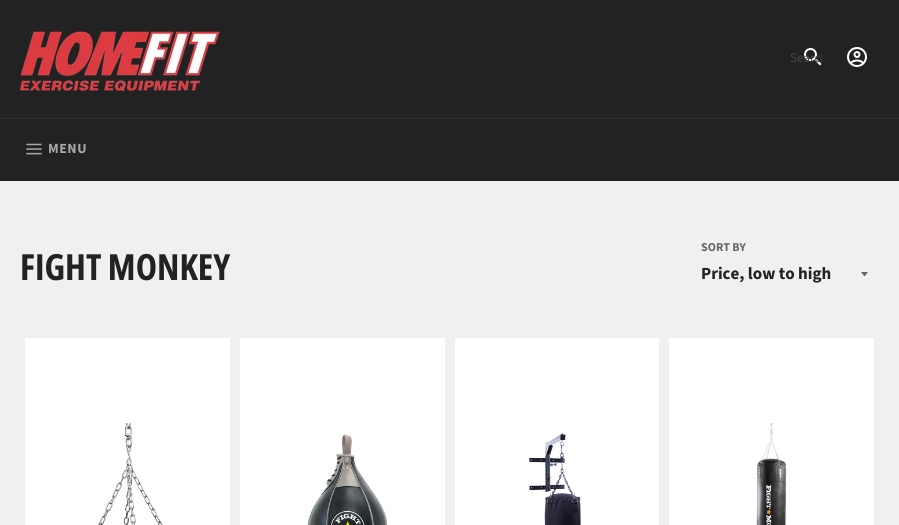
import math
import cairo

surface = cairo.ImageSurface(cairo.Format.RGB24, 899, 525)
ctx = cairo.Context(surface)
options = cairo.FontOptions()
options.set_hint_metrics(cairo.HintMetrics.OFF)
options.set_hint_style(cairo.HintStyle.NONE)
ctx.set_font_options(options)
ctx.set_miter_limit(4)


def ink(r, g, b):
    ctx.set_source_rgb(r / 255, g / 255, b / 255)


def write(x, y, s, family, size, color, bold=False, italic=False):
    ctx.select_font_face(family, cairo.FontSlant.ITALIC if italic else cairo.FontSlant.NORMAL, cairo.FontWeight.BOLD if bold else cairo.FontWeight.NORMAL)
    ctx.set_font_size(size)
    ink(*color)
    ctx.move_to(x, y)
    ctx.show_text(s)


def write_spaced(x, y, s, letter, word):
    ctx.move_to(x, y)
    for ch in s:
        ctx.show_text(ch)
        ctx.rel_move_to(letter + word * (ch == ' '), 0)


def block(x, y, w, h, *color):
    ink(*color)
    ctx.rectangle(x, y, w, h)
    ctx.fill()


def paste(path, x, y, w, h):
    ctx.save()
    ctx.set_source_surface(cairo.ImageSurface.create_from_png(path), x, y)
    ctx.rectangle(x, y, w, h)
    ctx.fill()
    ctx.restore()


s1 = dict(family="Source Sans Pro", size=13, color=(72, 72, 72))
s2 = dict(family="Open Sans Condensed", size=36, color=(34, 34, 34), bold=True)
s3 = dict(family="Source Sans Pro", size=12, color=(102, 102, 102), bold=True)
s4 = dict(family="Source Sans Pro", size=17, color=(34, 34, 34), bold=True)

ink(240, 240, 240)
ctx.paint()
block(0, 0, 899, 118, 34, 34, 34)
paste("pic1.png", 20, 31, 200, 61)
paste("pic2.png", 804, 48, 18, 18)
ctx.save()
ctx.rectangle(790, 49, 32, 18)
ctx.clip()
write(790, 62, "Search", **s1)
ctx.restore()
paste("pic3.png", 847, 47, 20, 20)
block(0, 119, 899, 62, 34, 34, 34)
block(0, 118, 899, 1, 47, 47, 47)
paste("pic4.png", 26, 143, 16, 12)
ctx.select_font_face("Source Sans Pro", cairo.FontSlant.NORMAL, cairo.FontWeight.BOLD)
ctx.set_font_size(14)
ink(167, 167, 167)
write_spaced(48, 153, "MENU", 0.5, 0)
write(20, 280, "FIGHT MONKEY", **s2)
write(701, 251, "SORT BY", **s3)
ctx.new_path()
ctx.move_to(861, 272)
ctx.curve_to(865.5, 277.5, 863.5, 277.5, 868, 272)
ctx.close_path()
ctx.fill()
write(701, 279, "Price, low to high", **s4)
ctx.rectangle(27.5, 340.5, 200, 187)
ink(255, 255, 255)
ctx.set_line_width(5)
ctx.stroke()
block(30, 343, 195, 182, 255, 255, 255)
paste("pic5.png", 98, 423, 65, 102)
ctx.rectangle(242.5, 340.5, 200, 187)
ctx.stroke()
block(245, 343, 195, 182, 255, 255, 255)
paste("pic6.png", 307, 434, 81, 91)
ctx.rectangle(457.5, 340.5, 199, 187)
ctx.stroke()
block(460, 343, 194, 182, 255, 255, 255)
paste("pic7.png", 529, 433, 53, 92)
ctx.rectangle(671.5, 340.5, 200, 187)
ctx.stroke()
block(674, 343, 195, 182, 255, 255, 255)
paste("pic8.png", 755, 423, 32, 102)
surface.write_to_png("screenshot.png")
